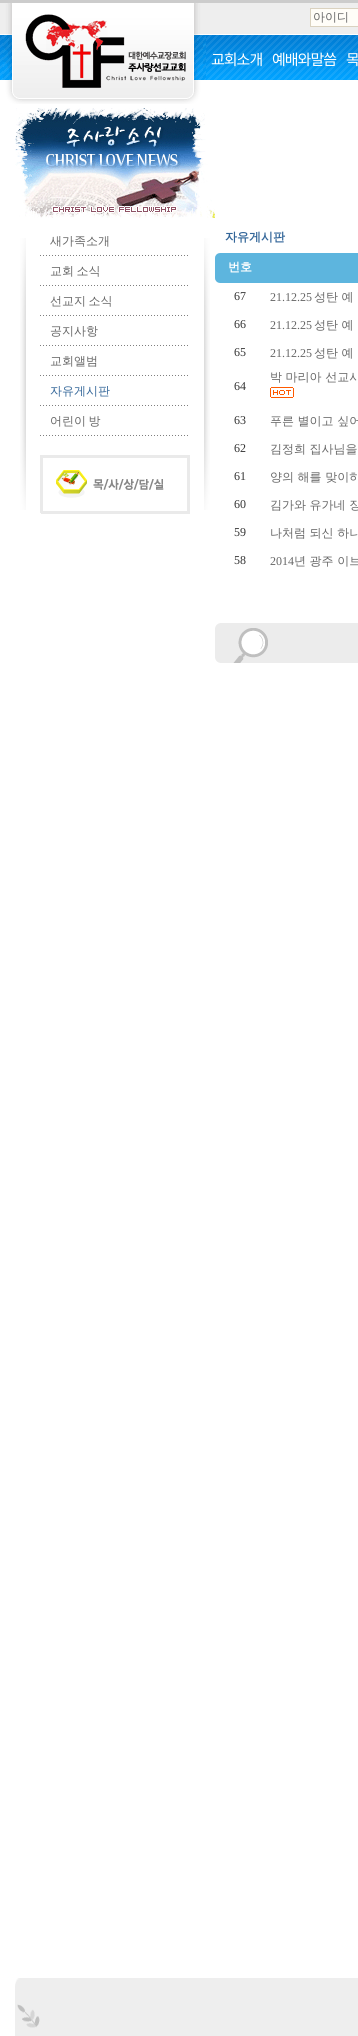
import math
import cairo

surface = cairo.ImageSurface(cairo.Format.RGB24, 358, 2036)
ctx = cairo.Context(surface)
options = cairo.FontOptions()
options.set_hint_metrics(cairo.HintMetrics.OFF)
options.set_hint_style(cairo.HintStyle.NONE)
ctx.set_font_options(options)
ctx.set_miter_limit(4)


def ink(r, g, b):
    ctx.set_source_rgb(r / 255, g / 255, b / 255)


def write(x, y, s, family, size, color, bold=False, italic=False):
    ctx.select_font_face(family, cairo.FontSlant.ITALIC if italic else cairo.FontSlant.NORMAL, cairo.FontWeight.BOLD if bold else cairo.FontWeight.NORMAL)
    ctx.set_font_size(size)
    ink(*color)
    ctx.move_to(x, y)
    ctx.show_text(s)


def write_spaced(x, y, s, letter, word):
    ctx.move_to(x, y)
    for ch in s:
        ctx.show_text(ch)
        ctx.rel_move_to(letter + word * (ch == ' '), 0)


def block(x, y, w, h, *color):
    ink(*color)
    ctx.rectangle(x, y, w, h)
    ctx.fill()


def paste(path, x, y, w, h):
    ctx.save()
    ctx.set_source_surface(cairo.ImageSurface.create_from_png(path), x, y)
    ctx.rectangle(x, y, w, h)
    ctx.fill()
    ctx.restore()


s1 = dict(family="WenQuanYi Zen Hei Medium", size=12, color=(102, 102, 102))
s2 = dict(family="WenQuanYi Zen Hei Medium", size=12, color=(51, 102, 153))
s3 = dict(family="WenQuanYi Zen Hei", size=12, color=(51, 102, 153), bold=True)
s4 = dict(family="WenQuanYi Zen Hei", size=12, color=(255, 255, 255), bold=True)
s5 = dict(family="Liberation Serif", size=12, color=(51, 51, 51))
s6 = dict(family="Liberation Serif", size=12, color=(102, 102, 102))

ink(255, 255, 255)
ctx.paint()
paste("pic1.png", 0, 0, 3, 80)
paste("pic2.png", 206, 0, 152, 80)
paste("pic3.png", 3, 0, 203, 104)
ink(255, 253, 248)
ctx.rectangle(310.5, 8.5, 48, 18)
ctx.fill_preserve()
ink(218, 210, 192)
ctx.set_line_width(1)
ctx.stroke()
write(313, 21, "아이디", **s1)
ctx.select_font_face("Noto Sans KR")
ctx.set_font_size(15)
ink(255, 255, 255)
write_spaced(211, 65, "교회소개", -1, 0)
write_spaced(272, 65, "예배와말씀", -1, 0)
write_spaced(346, 65, "목", -1, 0)
paste("pic4.png", 15, 108, 200, 110)
paste("pic5.png", 20, 238, 6, 272)
write(50, 245, "새가족소개", **s1)
paste("pic6.png", 40, 255, 148, 1)
write_spaced(50, 275, "교회 소식", 0, -1)
paste("pic6.png", 40, 285, 148, 1)
write_spaced(50, 305, "선교지 소식", 0, -1)
paste("pic6.png", 40, 315, 148, 1)
write(50, 335, "공지사항", **s1)
paste("pic6.png", 40, 345, 148, 1)
write(50, 365, "교회앨범", **s1)
paste("pic6.png", 40, 375, 148, 1)
write(50, 395, "자유게시판", **s2)
paste("pic6.png", 40, 405, 148, 1)
ink(102, 102, 102)
write_spaced(50, 425, "어린이 방", 0, -1)
paste("pic6.png", 40, 435, 148, 1)
paste("pic7.png", 40, 455, 150, 59)
paste("pic8.png", 204, 238, 6, 272)
write(225, 241, "자유게시판", **s3)
paste("pic9.png", 215, 253, 5, 30)
block(220, 253, 138, 30, 93, 181, 222)
write(228, 271, "번호", **s4)
write(234, 300, "67", **s5)
write(270, 301, "21.12.25", **s6)
write(314, 301, "성탄 예", **s1)
write(234, 328, "66", **s5)
write(270, 329, "21.12.25", **s6)
write(314, 329, "성탄 예", **s1)
write(234, 356, "65", **s5)
write(270, 357, "21.12.25", **s6)
write(314, 357, "성탄 예", **s1)
write(270, 381, "박 마리아 선교사", **s1)
paste("pic10.png", 270, 387, 24, 11)
write(234, 390, "64", **s5)
write(234, 424, "63", **s5)
write(270, 425, "푸른 별이고 싶어", **s1)
write(234, 452, "62", **s5)
write(270, 453, "김정희 집사님을", **s1)
write(234, 480, "61", **s5)
write(270, 481, "양의 해를 맞이하", **s1)
write(234, 508, "60", **s5)
write(270, 509, "김가와 유가네 장", **s1)
write(234, 536, "59", **s5)
write(270, 537, "나처럼 되신 하나", **s1)
write(234, 564, "58", **s5)
write(270, 565, "2014", **s6)
write(294, 565, "년 광주 이브", **s1)
paste("pic11.png", 215, 623, 53, 40)
block(268, 623, 90, 40, 236, 236, 236)
paste("pic12.png", 15, 1978, 343, 20)
block(15, 1998, 343, 38, 238, 238, 238)
paste("pic13.png", 17, 2004, 23, 24)
surface.write_to_png("screenshot.png")
